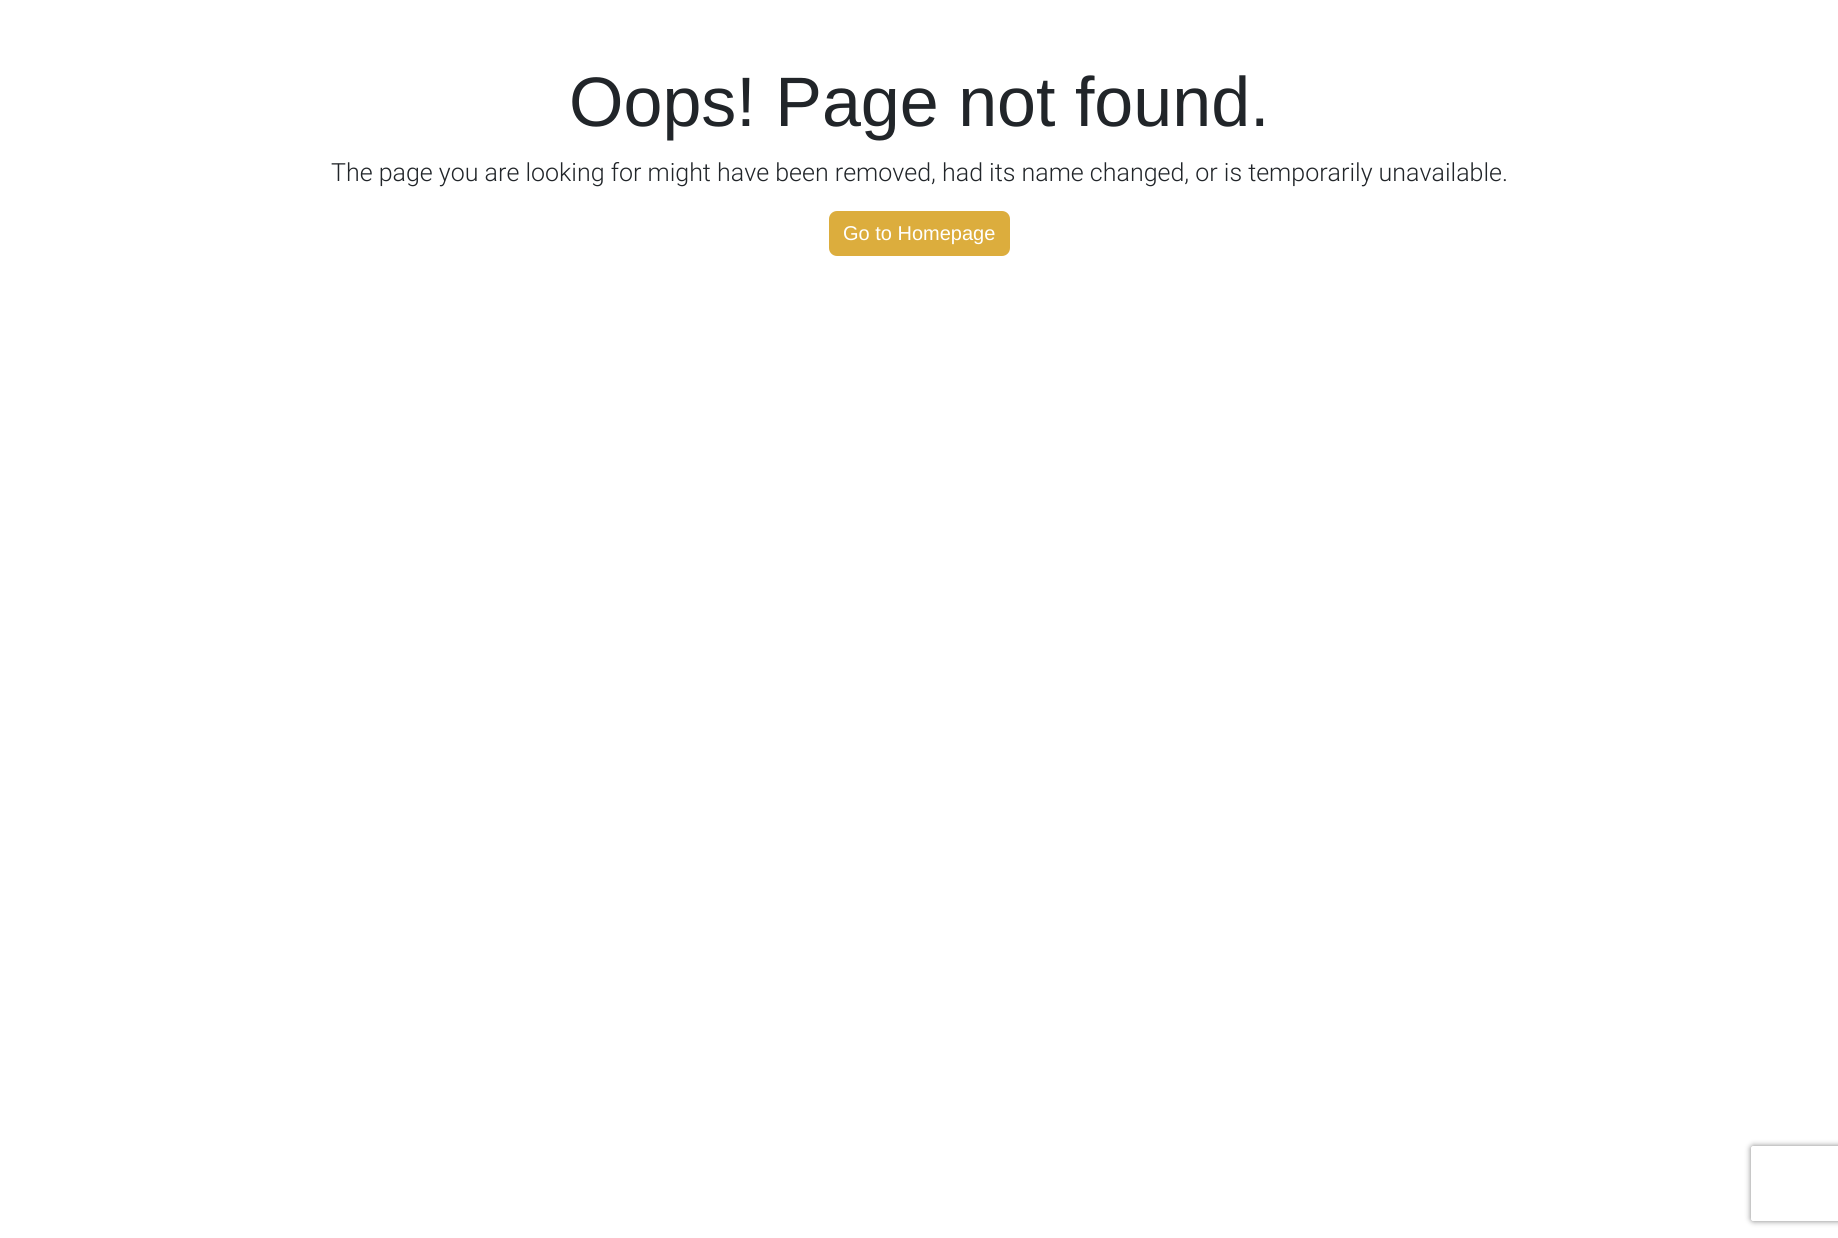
import math
import cairo

surface = cairo.ImageSurface(cairo.Format.RGB24, 1838, 1238)
ctx = cairo.Context(surface)
options = cairo.FontOptions()
options.set_hint_metrics(cairo.HintMetrics.OFF)
options.set_hint_style(cairo.HintStyle.NONE)
ctx.set_font_options(options)
ctx.set_miter_limit(4)


def ink(r, g, b):
    ctx.set_source_rgb(r / 255, g / 255, b / 255)


def write(x, y, s, family, size, color, bold=False, italic=False):
    ctx.select_font_face(family, cairo.FontSlant.ITALIC if italic else cairo.FontSlant.NORMAL, cairo.FontWeight.BOLD if bold else cairo.FontWeight.NORMAL)
    ctx.set_font_size(size)
    ink(*color)
    ctx.move_to(x, y)
    ctx.show_text(s)


def round_path(x, y, w, h, r):
    ctx.new_sub_path()
    for i, (u, v) in enumerate([(x + w - r, y + h - r), (x + r, y + h - r), (x + r, y + r), (x + w - r, y + r)]):
        ctx.arc(u, v, r, i * math.pi / 2, (i + 1) * math.pi / 2)
    ctx.close_path()


def blur_box(x, y, w, h, r, blur, alpha):
    ctx.push_group_with_content(cairo.Content.ALPHA)
    ctx.set_operator(cairo.Operator.SOURCE)
    for i in range(15, -16, -2):
        e = blur * i / 6
        if min(w, h) + 2 * e > 0:
            ctx.set_source_rgba(0, 0, 0, alpha * math.erfc((i - 1) / 8.5) / 2)
            round_path(x - e, y - e, w + 2 * e, h + 2 * e, max(0, min(r + e + blur * .6, min(w, h) / 2 + e)))
            ctx.fill()
    ctx.mask(ctx.pop_group())


s1 = dict(family="Liberation Sans", size=70, color=(33, 37, 41))
s2 = dict(family="Roboto Light", size=25, color=(33, 37, 41))
s3 = dict(family="Liberation Sans", size=20, color=(255, 255, 255))

ink(255, 255, 255)
ctx.paint()
write(569, 126, "Oops! Page not found.", **s1)
write(331, 181, "The page you are looking for might have been removed, had its name changed, or is temporarily unavailable.", **s2)
ink(220, 173, 61)
round_path(829, 211, 181, 45, 8)
ctx.fill()
write(843, 240, "Go to Homepage", **s3)
ctx.save()
ctx.set_fill_rule(cairo.FillRule.EVEN_ODD)
ctx.new_path()
ctx.move_to(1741, 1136)
ctx.line_to(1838, 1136)
ctx.line_to(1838, 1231)
ctx.line_to(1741, 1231)
ctx.close_path()
ctx.move_to(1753.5, 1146)
ctx.line_to(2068.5, 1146)
ctx.curve_to(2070, 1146, 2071, 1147, 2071, 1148.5)
ctx.line_to(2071, 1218.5)
ctx.curve_to(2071, 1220, 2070, 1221, 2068.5, 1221)
ctx.line_to(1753.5, 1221)
ctx.curve_to(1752, 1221, 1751, 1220, 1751, 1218.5)
ctx.line_to(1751, 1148.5)
ctx.curve_to(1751, 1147, 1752, 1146, 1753.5, 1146)
ctx.close_path()
ctx.clip()
ink(128, 128, 128)
blur_box(1751, 1146, 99, 75, 2.5, 3, 1)
ctx.restore()
surface.write_to_png("screenshot.png")
